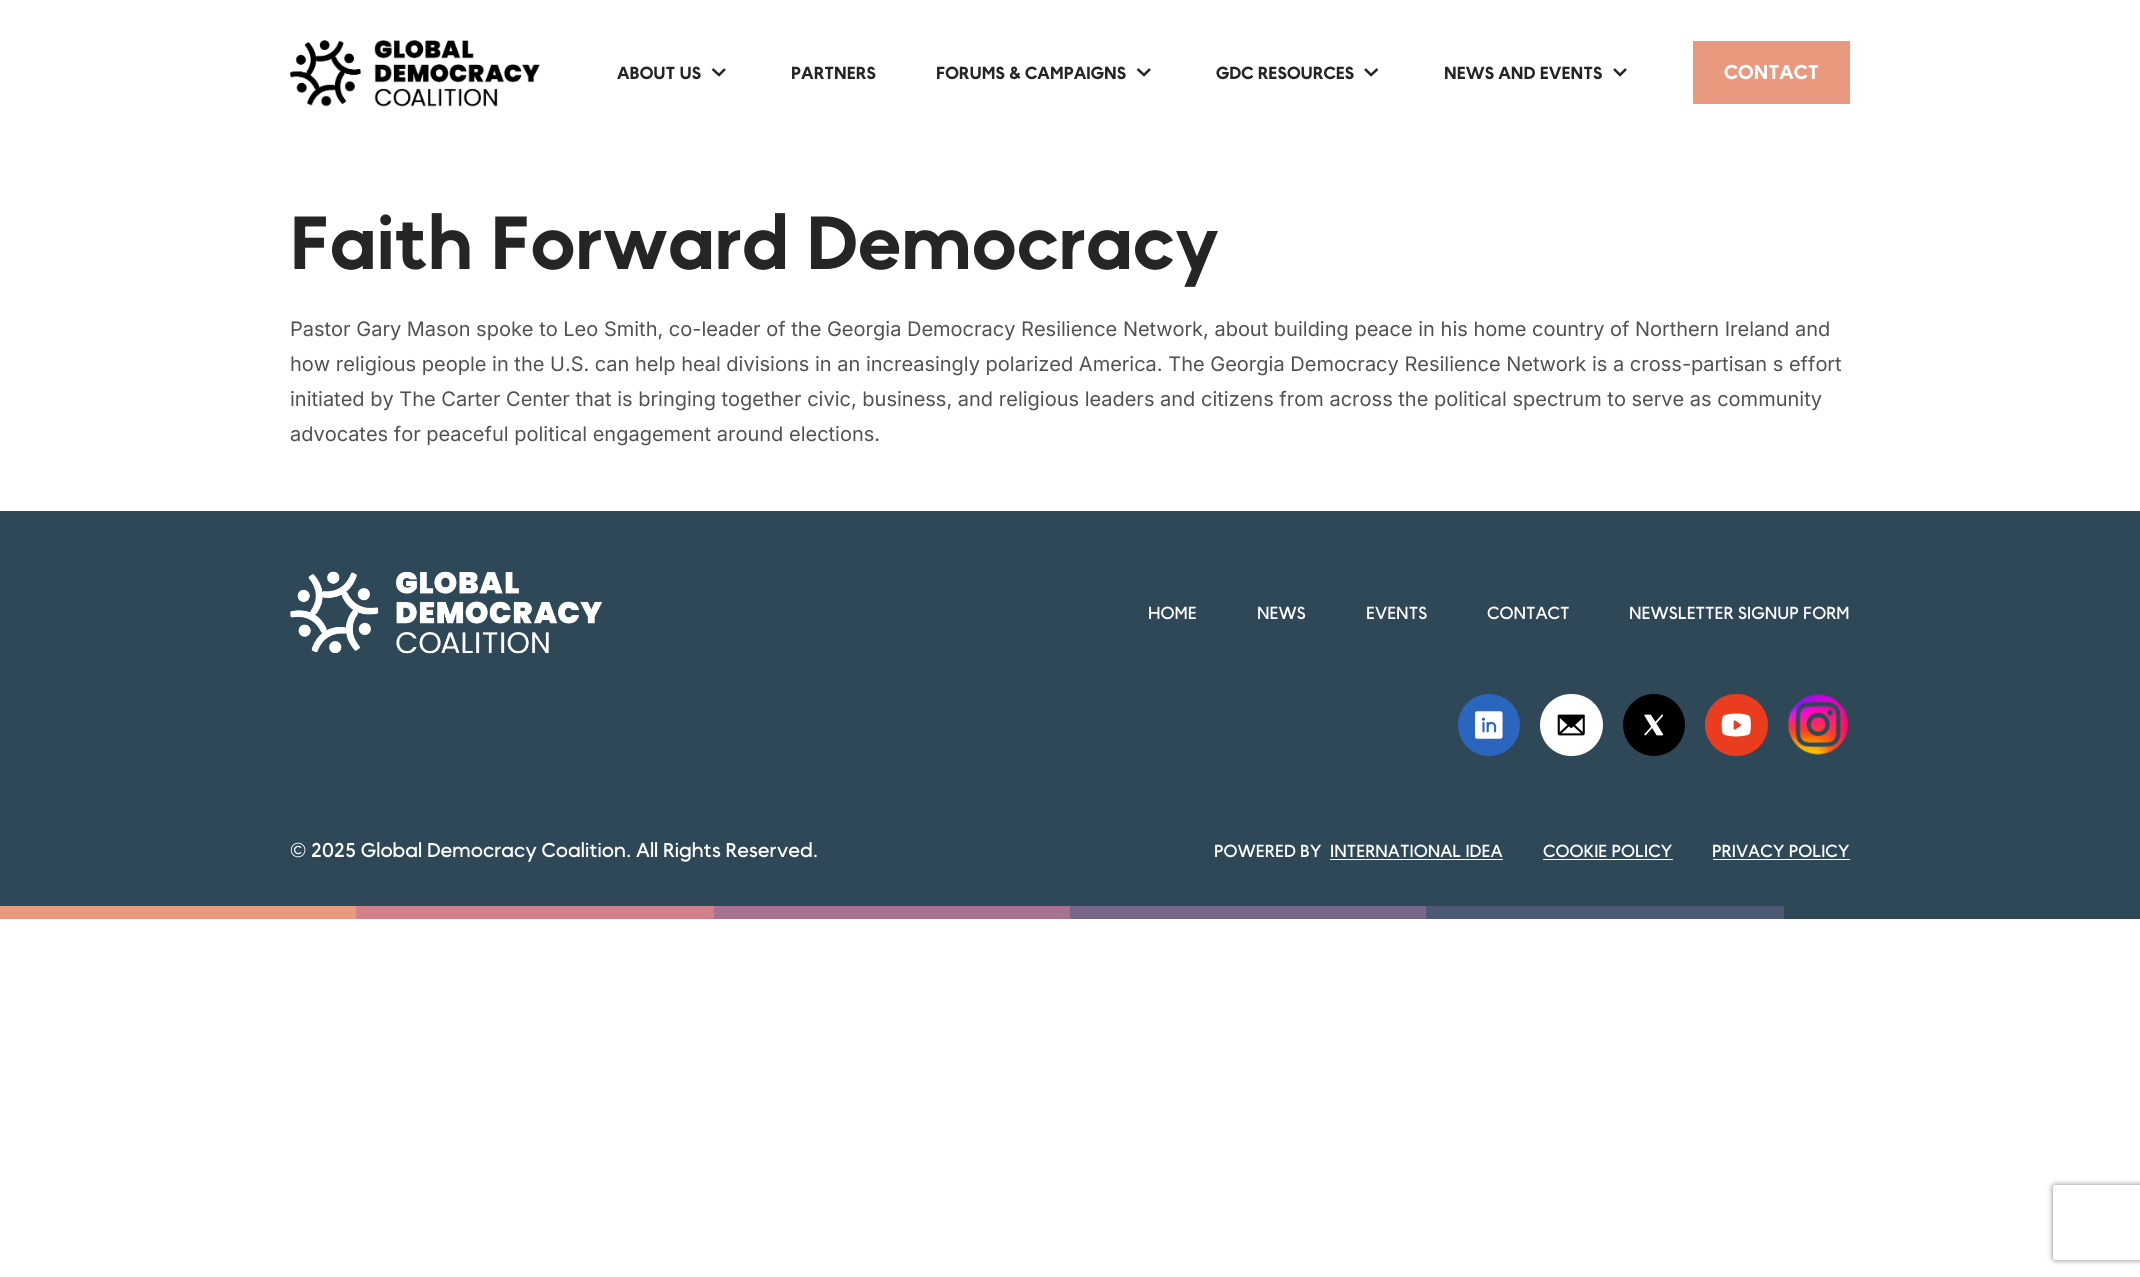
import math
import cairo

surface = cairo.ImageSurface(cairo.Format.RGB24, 2140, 1277)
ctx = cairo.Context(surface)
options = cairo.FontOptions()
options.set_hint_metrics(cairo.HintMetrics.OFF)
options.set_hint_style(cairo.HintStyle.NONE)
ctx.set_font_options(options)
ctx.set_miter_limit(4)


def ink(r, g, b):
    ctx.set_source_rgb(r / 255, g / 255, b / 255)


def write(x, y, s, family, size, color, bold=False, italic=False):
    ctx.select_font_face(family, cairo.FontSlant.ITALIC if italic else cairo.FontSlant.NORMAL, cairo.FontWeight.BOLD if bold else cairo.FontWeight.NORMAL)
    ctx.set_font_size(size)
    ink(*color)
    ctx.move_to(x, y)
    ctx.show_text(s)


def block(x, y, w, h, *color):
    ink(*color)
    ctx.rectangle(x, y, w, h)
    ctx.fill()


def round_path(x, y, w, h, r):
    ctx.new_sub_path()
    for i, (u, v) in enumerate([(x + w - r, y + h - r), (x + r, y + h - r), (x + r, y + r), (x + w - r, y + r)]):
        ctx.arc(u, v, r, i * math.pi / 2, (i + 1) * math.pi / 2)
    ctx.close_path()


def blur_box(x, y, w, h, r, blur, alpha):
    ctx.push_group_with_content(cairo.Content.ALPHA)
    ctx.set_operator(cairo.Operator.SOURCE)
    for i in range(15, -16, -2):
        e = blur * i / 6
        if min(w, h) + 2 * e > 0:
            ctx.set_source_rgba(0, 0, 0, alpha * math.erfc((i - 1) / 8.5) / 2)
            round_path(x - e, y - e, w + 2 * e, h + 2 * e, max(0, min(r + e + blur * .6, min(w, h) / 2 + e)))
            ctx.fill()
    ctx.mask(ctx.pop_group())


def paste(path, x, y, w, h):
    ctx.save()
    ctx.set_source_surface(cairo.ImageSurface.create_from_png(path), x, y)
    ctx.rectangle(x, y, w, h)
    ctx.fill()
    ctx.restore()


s1 = dict(family="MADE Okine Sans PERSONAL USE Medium", size=17.5, color=(37, 37, 37))
s2 = dict(family="MADE Okine Sans PERSONAL USE Medium", size=20, color=(255, 255, 255))
s3 = dict(family="MADE Okine Sans PERSONAL USE Medium", size=75, color=(37, 37, 37))
s4 = dict(family="Inter", size=20, color=(81, 81, 81))
s5 = dict(family="MADE Okine Sans PERSONAL USE", size=17.5, color=(255, 255, 255))
s6 = dict(family="MADE Okine Sans PERSONAL USE", size=20, color=(255, 255, 255))

ink(255, 255, 255)
ctx.paint()
paste("pic1.png", 290, 40, 250, 67)
write(617, 79, "ABOUT US", **s1)
ctx.new_path()
ctx.move_to(725, 69)
ctx.line_to(719, 75)
ctx.line_to(712.5, 69)
ctx.set_line_width(2.5)
ctx.stroke()
write(791, 79, "PARTNERS", **s1)
write(936, 79, "FORUMS & CAMPAIGNS", **s1)
ctx.new_path()
ctx.move_to(1150, 69)
ctx.line_to(1144, 75)
ctx.line_to(1137.5, 69)
ctx.stroke()
write(1216, 79, "GDC RESOURCES", **s1)
ctx.new_path()
ctx.move_to(1377.5, 69)
ctx.line_to(1371, 75)
ctx.line_to(1365, 69)
ctx.stroke()
write(1444, 79, "NEWS AND EVENTS", **s1)
ctx.new_path()
ctx.move_to(1626, 69)
ctx.line_to(1620, 75)
ctx.line_to(1614, 69)
ctx.stroke()
block(1693, 41, 157, 63, 233, 153, 126)
write(1724, 79, "CONTACT", **s2)
write(290, 269, "Faith Forward Democracy", **s3)
write(290, 336, "Pastor Gary Mason spoke to Leo Smith, co-leader of the Georgia Democracy Resilience Network, about building peace in his home country of Northern Ireland and", **s4)
write(290, 371, "how religious people in the U.S. can help heal divisions in an increasingly polarized America. The Georgia Democracy Resilience Network is a cross-partisan s effort", **s4)
write(290, 406, "initiated by The Carter Center that is bringing together civic, business, and religious leaders and citizens from across the political spectrum to serve as community", **s4)
write(290, 441, "advocates for peaceful political engagement around elections.", **s4)
block(0, 511, 2140, 408, 47, 72, 88)
paste("pic2.png", 290, 571, 313, 83)
write(1148, 619, "HOME", **s5)
write(1257, 619, "NEWS", **s5)
write(1366, 619, "EVENTS", **s5)
write(1487, 619, "CONTACT", **s5)
write(1629, 619, "NEWSLETTER SIGNUP FORM", **s5)
paste("pic3.png", 1458, 694, 62, 62)
paste("pic4.png", 1540, 694, 63, 62)
paste("pic5.png", 1623, 694, 62, 62)
paste("pic6.png", 1705, 694, 63, 62)
paste("pic7.png", 1787, 694, 62, 61)
write(290, 857, "© 2025 Global Democracy Coalition. All Rights Reserved.", **s6)
write(1214, 857, "POWERED BY", **s5)
write(1330, 857, "INTERNATIONAL IDEA", **s5)
block(1330, 859, 173, 1, 255, 255, 255)
write(1543, 857, "COOKIE POLICY", **s5)
block(1543, 859, 130, 1, 255, 255, 255)
write(1712, 857, "PRIVACY POLICY", **s5)
block(1713, 859, 137, 1, 255, 255, 255)
block(0, 906, 356, 13, 233, 153, 126)
block(356, 906, 358, 13, 208, 128, 138)
block(714, 906, 356, 13, 168, 113, 144)
block(1070, 906, 356, 13, 120, 101, 138)
block(1426, 906, 358, 13, 77, 88, 117)
ctx.save()
ctx.set_fill_rule(cairo.FillRule.EVEN_ODD)
ctx.new_path()
ctx.move_to(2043, 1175)
ctx.line_to(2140, 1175)
ctx.line_to(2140, 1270)
ctx.line_to(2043, 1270)
ctx.close_path()
ctx.move_to(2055.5, 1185)
ctx.line_to(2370.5, 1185)
ctx.curve_to(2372, 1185, 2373, 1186, 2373, 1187.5)
ctx.line_to(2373, 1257.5)
ctx.curve_to(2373, 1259, 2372, 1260, 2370.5, 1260)
ctx.line_to(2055.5, 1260)
ctx.curve_to(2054, 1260, 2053, 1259, 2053, 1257.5)
ctx.line_to(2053, 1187.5)
ctx.curve_to(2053, 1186, 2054, 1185, 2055.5, 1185)
ctx.close_path()
ctx.clip()
ink(128, 128, 128)
blur_box(2053, 1185, 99, 75, 2.5, 3, 1)
ctx.restore()
surface.write_to_png("screenshot.png")
